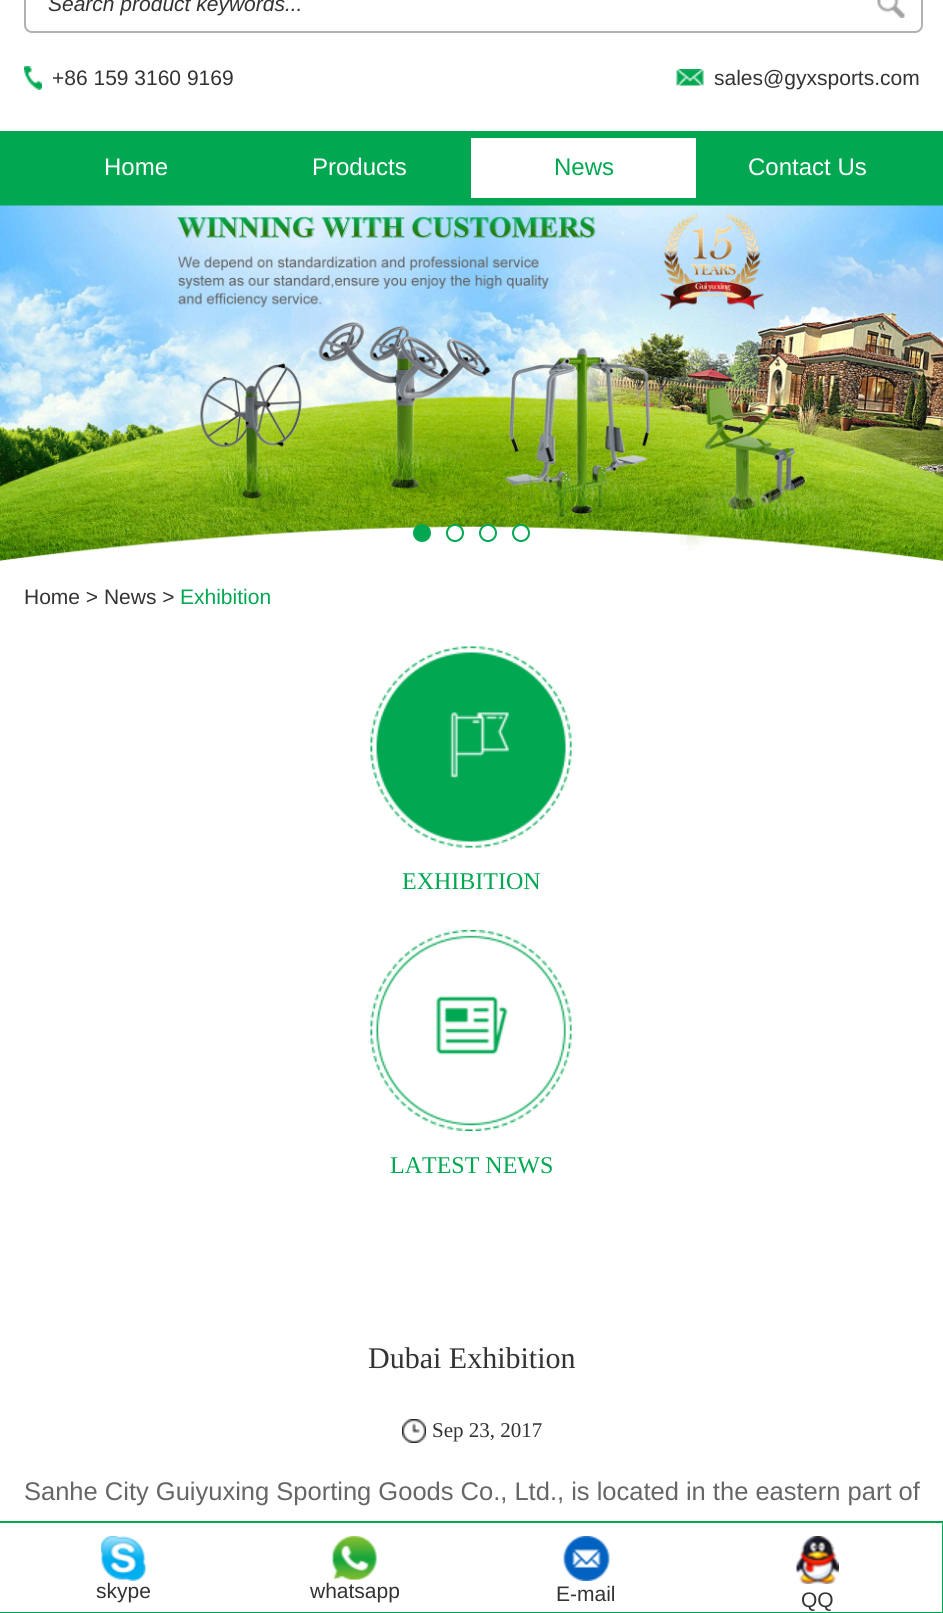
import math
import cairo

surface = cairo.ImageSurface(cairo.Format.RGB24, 943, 1613)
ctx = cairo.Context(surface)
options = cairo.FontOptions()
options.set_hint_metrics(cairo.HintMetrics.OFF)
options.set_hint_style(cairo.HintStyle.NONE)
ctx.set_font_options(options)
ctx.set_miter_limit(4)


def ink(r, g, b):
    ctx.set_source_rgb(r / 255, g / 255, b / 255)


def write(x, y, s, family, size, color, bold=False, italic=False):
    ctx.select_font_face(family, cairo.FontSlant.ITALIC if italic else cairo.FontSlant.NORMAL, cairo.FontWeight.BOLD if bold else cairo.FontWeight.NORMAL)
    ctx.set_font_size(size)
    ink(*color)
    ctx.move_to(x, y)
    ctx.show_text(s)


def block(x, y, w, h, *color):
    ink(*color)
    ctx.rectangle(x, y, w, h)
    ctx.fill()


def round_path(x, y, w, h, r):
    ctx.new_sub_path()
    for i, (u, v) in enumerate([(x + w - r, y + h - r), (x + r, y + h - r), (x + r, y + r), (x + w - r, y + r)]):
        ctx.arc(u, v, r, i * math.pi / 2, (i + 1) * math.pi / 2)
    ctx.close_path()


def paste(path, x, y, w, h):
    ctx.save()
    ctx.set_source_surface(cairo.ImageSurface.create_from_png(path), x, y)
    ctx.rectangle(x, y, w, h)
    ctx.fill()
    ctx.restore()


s1 = dict(family="Liberation Sans", size=21, color=(51, 51, 51), italic=True)
s2 = dict(family="Liberation Sans", size=21, color=(51, 51, 51))
s3 = dict(family="Liberation Sans", size=24, color=(255, 255, 255))
s4 = dict(family="Liberation Sans", size=24, color=(1, 167, 81))
s5 = dict(family="Liberation Sans", size=21, color=(1, 167, 81))
s6 = dict(family="Liberation Serif", size=24, color=(1, 167, 81))
s7 = dict(family="Liberation Serif", size=30, color=(51, 51, 51))
s8 = dict(family="Liberation Serif", size=21, color=(51, 51, 51))
s9 = dict(family="Liberation Sans", size=25.5, color=(102, 102, 102))

ink(255, 255, 255)
ctx.paint()
round_path(25, -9, 897, 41, 7)
ink(176, 177, 179)
ctx.stroke()
write(48, 11, "Search product keywords...", **s1)
paste("pic1.png", 877, 0, 28, 18)
paste("pic2.png", 24, 66, 18, 24)
write(52, 85, "+86 159 3160 9169", **s2)
paste("pic3.png", 676, 69, 28, 17)
write(714, 85, "sales@gyxsports.com", **s2)
block(0, 131, 943, 75, 1, 167, 81)
write(104, 175, "Home", **s3)
write(312, 175, "Products", **s3)
block(471, 138, 225, 60, 255, 255, 255)
write(554, 175, "News", **s4)
write(748, 175, "Contact Us", **s3)
paste("pic4.png", 0, 205, 943, 356)
ink(1, 167, 81)
ctx.arc(422, 533, 8, 0, 2 * math.pi)
ctx.fill_preserve()
ctx.stroke()
ink(255, 255, 255)
ctx.arc(455, 533, 8, 0, 2 * math.pi)
ctx.fill_preserve()
ink(1, 167, 81)
ctx.stroke()
ink(255, 255, 255)
ctx.arc(488, 533, 8, 0, 2 * math.pi)
ctx.fill_preserve()
ink(1, 167, 81)
ctx.stroke()
ink(255, 255, 255)
ctx.arc(521, 533, 8, 0, 2 * math.pi)
ctx.fill_preserve()
ink(1, 167, 81)
ctx.stroke()
write(24, 604, "Home > News >", **s2)
write(180, 604, "Exhibition", **s5)
paste("pic5.png", 370, 646, 202, 202)
write(402, 889, "EXHIBITION", **s6)
paste("pic6.png", 370, 930, 202, 201)
write(390, 1173, "LATEST NEWS", **s6)
write(368, 1368, "Dubai Exhibition", **s7)
paste("pic7.png", 402, 1419, 24, 24)
write(432, 1437, "Sep 23, 2017", **s8)
write(24, 1500, "Sanhe City Guiyuxing Sporting Goods Co., Ltd., is located in the eastern part of", **s9)
ctx.rectangle(-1, 1522, 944, 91)
ink(1, 167, 81)
ctx.stroke()
paste("pic8.png", 101, 1536, 45, 45)
write(96, 1598, "skype", **s2)
paste("pic9.png", 331, 1536, 46, 45)
write(310, 1598, "whatsapp", **s2)
paste("pic10.png", 563, 1536, 47, 45)
write(556, 1601, "E-mail", **s2)
paste("pic11.png", 796, 1536, 43, 48)
write(801, 1607, "QQ", **s2)
surface.write_to_png("screenshot.png")
